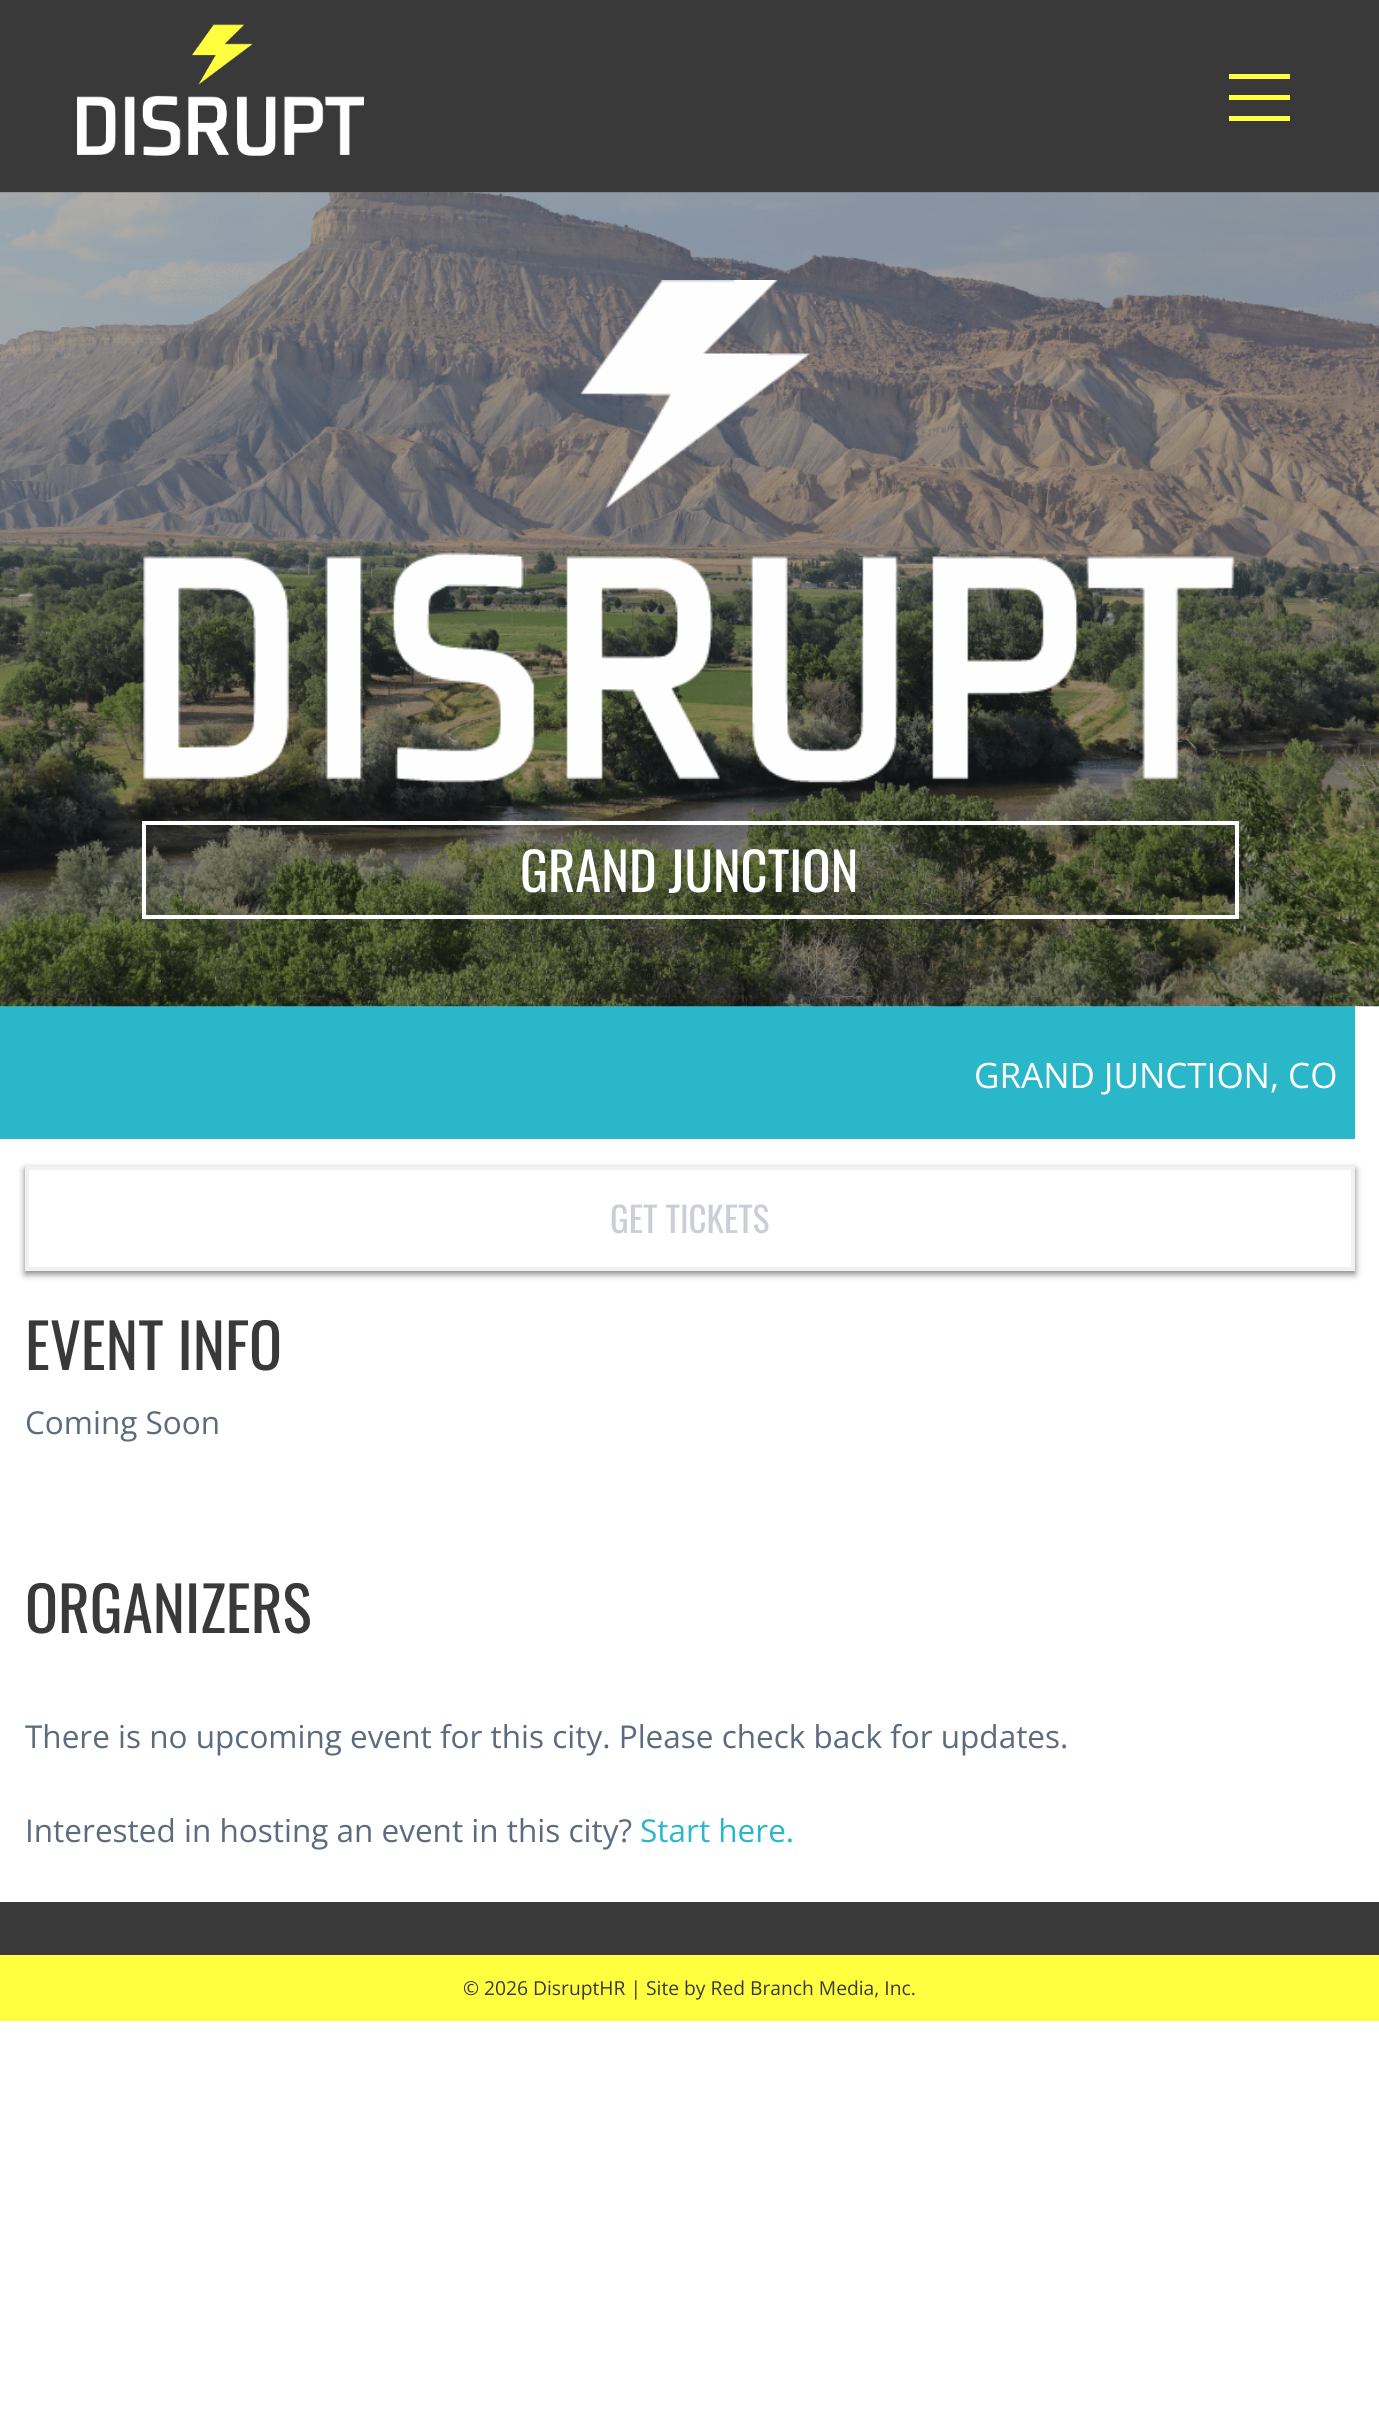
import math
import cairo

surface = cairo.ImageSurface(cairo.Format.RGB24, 1379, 2416)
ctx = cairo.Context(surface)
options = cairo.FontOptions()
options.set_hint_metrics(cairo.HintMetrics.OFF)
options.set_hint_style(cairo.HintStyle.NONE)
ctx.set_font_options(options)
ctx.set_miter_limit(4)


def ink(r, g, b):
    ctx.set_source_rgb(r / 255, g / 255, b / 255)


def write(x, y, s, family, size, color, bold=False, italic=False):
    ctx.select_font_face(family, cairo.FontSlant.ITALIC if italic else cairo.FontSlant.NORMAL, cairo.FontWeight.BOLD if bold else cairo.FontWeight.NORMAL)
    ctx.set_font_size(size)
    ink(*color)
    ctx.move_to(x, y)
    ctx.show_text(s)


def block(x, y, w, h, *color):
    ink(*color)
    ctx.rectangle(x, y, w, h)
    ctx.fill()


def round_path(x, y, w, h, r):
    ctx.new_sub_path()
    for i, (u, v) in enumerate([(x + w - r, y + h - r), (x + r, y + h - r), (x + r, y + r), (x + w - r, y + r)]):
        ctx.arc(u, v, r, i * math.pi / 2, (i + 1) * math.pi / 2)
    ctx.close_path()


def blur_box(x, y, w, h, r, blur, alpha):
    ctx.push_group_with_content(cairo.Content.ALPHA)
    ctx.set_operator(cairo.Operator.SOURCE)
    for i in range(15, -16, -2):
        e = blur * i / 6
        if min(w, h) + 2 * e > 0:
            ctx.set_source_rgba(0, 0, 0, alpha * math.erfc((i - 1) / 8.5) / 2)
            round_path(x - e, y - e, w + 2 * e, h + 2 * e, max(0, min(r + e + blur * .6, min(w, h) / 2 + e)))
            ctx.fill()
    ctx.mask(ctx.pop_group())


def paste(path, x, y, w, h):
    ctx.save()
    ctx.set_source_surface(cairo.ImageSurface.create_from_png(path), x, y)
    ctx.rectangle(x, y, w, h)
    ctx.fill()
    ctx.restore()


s1 = dict(family="Oswald", size=52.5, color=(255, 255, 255))
s2 = dict(family="Open Sans", size=35, color=(255, 255, 255))
s3 = dict(family="Oswald", size=35, color=(202, 206, 214))
s4 = dict(family="Oswald", size=61.25, color=(57, 57, 58))
s5 = dict(family="Open Sans", size=31.5, color=(92, 107, 128))
s6 = dict(family="Open Sans", size=31.5, color=(42, 183, 202))
s7 = dict(family="Open Sans", size=19.25, color=(57, 57, 58))

ink(255, 255, 255)
ctx.paint()
block(0, 0, 1379, 193, 57, 57, 58)
paste("pic1.png", 77, 24, 287, 132)
block(1229, 95, 61, 5, 255, 255, 64)
block(1229, 74, 61, 5, 255, 255, 64)
block(1229, 116, 61, 5, 255, 255, 64)
block(0, 1006, 1355, 133, 42, 183, 202)
paste("pic2.png", 0, 192, 1379, 815)
paste("pic3.png", 143, 280, 1092, 503)
ctx.rectangle(144, 823, 1093, 94)
ink(255, 255, 255)
ctx.set_line_width(4)
ctx.stroke()
write(520, 892, "GRAND JUNCTION", **s1)
write(974, 1088, "GRAND JUNCTION, CO", **s2)
ink(0, 0, 0)
blur_box(25, 1169, 1330, 105, 0, 3.5, 0.5)
ink(255, 255, 255)
ctx.rectangle(27, 1168, 1326, 101)
ctx.fill_preserve()
ink(239, 241, 242)
ctx.stroke()
write(610, 1233, "GET TICKETS", **s3)
write(25, 1370, "EVENT INFO", **s4)
write(25, 1434, "Coming Soon", **s5)
write(25, 1633, "ORGANIZERS", **s4)
write(25, 1748, "There is no upcoming event for this city. Please check back for updates.", **s5)
write(25, 1842, "Interested in hosting an event in this city?", **s5)
write(640, 1842, "Start here.", **s6)
block(0, 1902, 1379, 53, 57, 57, 58)
block(0, 1955, 1379, 66, 255, 255, 64)
write(463, 1995, "© 2026 DisruptHR | Site by Red Branch Media, Inc.", **s7)
surface.write_to_png("screenshot.png")
